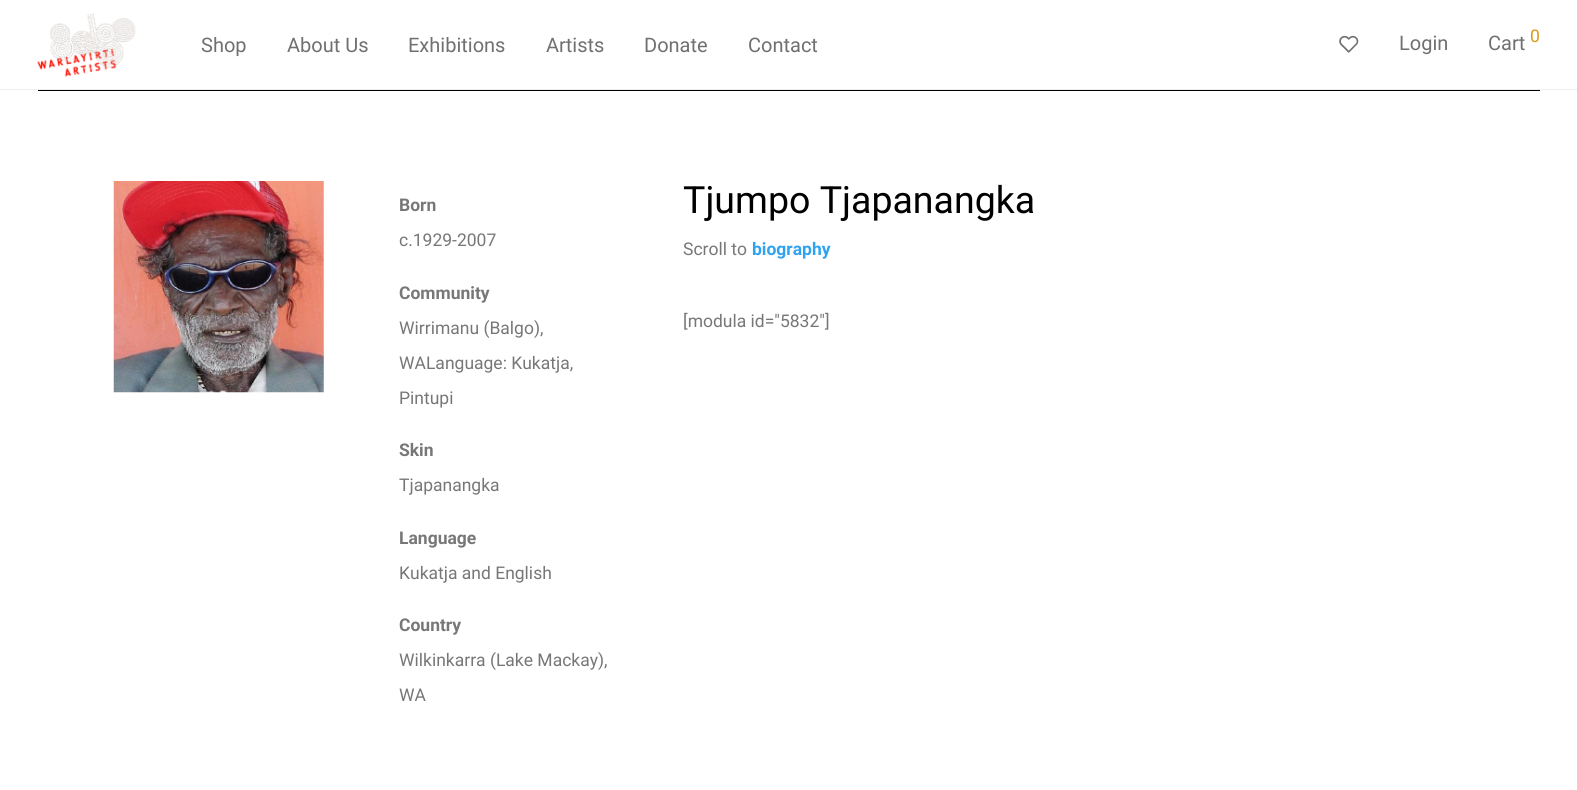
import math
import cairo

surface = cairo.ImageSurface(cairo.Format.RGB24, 1577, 790)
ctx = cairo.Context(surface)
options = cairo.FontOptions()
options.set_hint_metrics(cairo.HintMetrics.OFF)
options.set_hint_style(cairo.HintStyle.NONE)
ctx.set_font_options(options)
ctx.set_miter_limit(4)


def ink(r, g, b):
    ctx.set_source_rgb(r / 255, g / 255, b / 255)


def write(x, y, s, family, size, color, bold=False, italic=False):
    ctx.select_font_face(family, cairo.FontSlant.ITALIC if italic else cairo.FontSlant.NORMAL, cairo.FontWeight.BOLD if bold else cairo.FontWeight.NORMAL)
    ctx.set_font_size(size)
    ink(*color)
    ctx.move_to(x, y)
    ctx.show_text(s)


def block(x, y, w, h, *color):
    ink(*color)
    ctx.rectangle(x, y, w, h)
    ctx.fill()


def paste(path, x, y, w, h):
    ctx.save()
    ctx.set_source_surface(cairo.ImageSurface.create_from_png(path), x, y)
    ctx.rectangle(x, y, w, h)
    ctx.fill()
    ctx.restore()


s1 = dict(family="Roboto", size=20, color=(112, 112, 112))
s2 = dict(family="Roboto", size=17.5, color=(220, 152, 20))
s3 = dict(family="Roboto", size=17.5, color=(119, 119, 119), bold=True)
s4 = dict(family="Roboto", size=17.5, color=(119, 119, 119))
s5 = dict(family="Roboto", size=37.5, color=(0, 0, 0))
s6 = dict(family="Roboto", size=17.5, color=(46, 163, 242), bold=True)

ink(255, 255, 255)
ctx.paint()
block(0, 89, 1577, 1, 238, 238, 238)
paste("pic1.png", 37, 13, 99, 64)
write(201, 52, "Shop", **s1)
write(287, 52, "About Us", **s1)
write(408, 52, "Exhibitions", **s1)
write(546, 52, "Artists", **s1)
write(644, 52, "Donate", **s1)
write(748, 52, "Contact", **s1)
paste("pic2.png", 1339, 35, 20, 18)
write(1399, 50, "Login", **s1)
write(1488, 50, "Cart", **s1)
write(1530, 42, "0", **s2)
block(38, 90, 1502, 1, 0, 0, 0)
paste("pic3.png", 113, 181, 211, 212)
write(399, 211, "Born", **s3)
write(399, 246, "c.1929-2007", **s4)
write(399, 299, "Community", **s3)
write(399, 334, "Wirrimanu (Balgo),", **s4)
write(399, 369, "WALanguage: Kukatja,", **s4)
write(399, 404, "Pintupi", **s4)
write(399, 456, "Skin", **s3)
write(399, 491, "Tjapanangka", **s4)
write(399, 544, "Language", **s3)
write(399, 579, "Kukatja and English", **s4)
write(399, 631, "Country", **s3)
write(399, 666, "Wilkinkarra (Lake Mackay),", **s4)
write(399, 701, "WA", **s4)
write(683, 213, "Tjumpo Tjapanangka", **s5)
write(683, 255, "Scroll to", **s4)
write(752, 255, "biography", **s6)
write(683, 327, "[modula id=\"5832\"]", **s4)
surface.write_to_png("screenshot.png")
